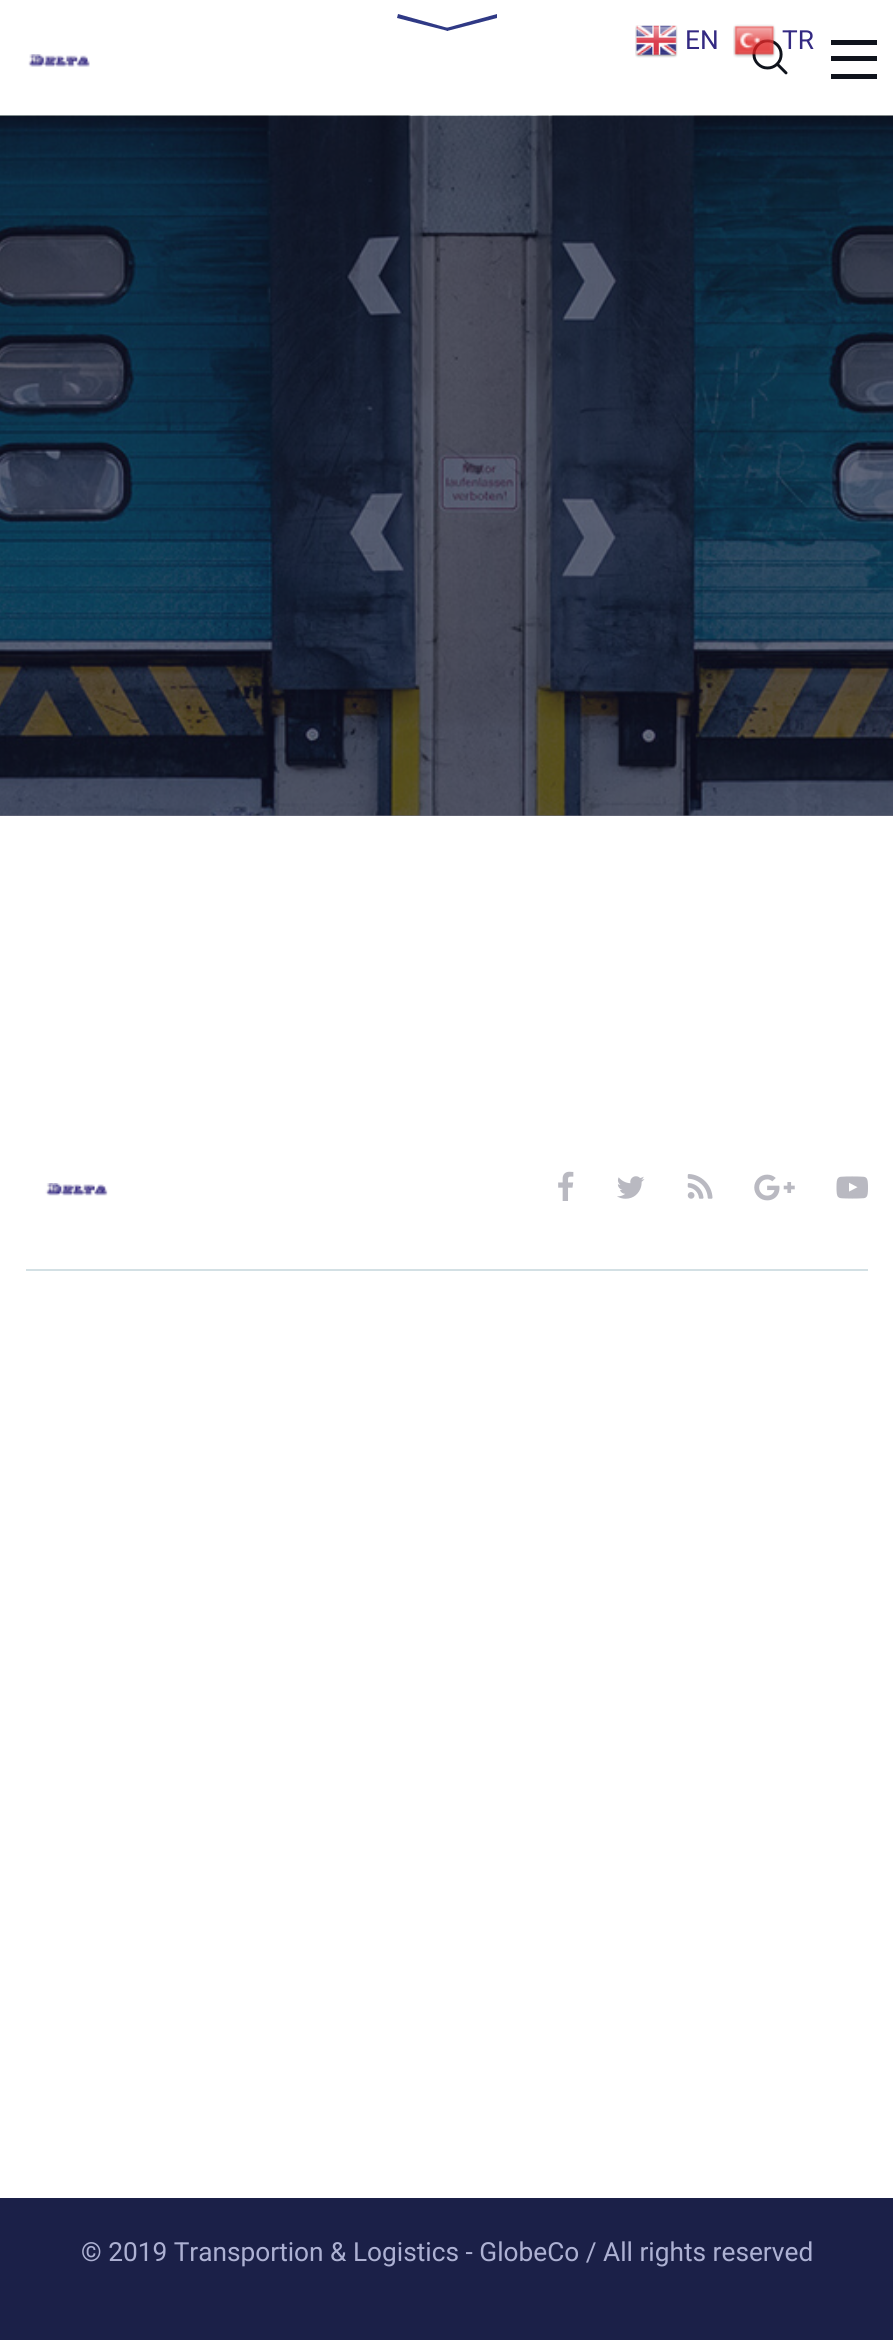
import math
import cairo

surface = cairo.ImageSurface(cairo.Format.RGB24, 893, 2340)
ctx = cairo.Context(surface)
options = cairo.FontOptions()
options.set_hint_metrics(cairo.HintMetrics.OFF)
options.set_hint_style(cairo.HintStyle.NONE)
ctx.set_font_options(options)
ctx.set_miter_limit(4)


def ink(r, g, b):
    ctx.set_source_rgb(r / 255, g / 255, b / 255)


def write(x, y, s, family, size, color, bold=False, italic=False):
    ctx.select_font_face(family, cairo.FontSlant.ITALIC if italic else cairo.FontSlant.NORMAL, cairo.FontWeight.BOLD if bold else cairo.FontWeight.NORMAL)
    ctx.set_font_size(size)
    ink(*color)
    ctx.move_to(x, y)
    ctx.show_text(s)


def block(x, y, w, h, *color):
    ink(*color)
    ctx.rectangle(x, y, w, h)
    ctx.fill()


def paste(path, x, y, w, h):
    ctx.save()
    ctx.set_source_surface(cairo.ImageSurface.create_from_png(path), x, y)
    ctx.rectangle(x, y, w, h)
    ctx.fill()
    ctx.restore()


s1 = dict(family="Roboto", size=26.25, color=(51, 41, 130))
s2 = dict(family="Roboto", size=26.25, color=(173, 177, 211))

ink(255, 255, 255)
ctx.paint()
block(0, 815, 893, 1, 112, 113, 128)
paste("pic1.png", 635, 25, 43, 33)
write(685, 49, "EN", **s1)
paste("pic4.png", 752, 39, 36, 36)
paste("pic2.png", 733, 24, 43, 34)
write(782, 49, "TR", **s1)
ink(47, 57, 133)
ctx.new_path()
ctx.move_to(398, 14)
ctx.line_to(448, 28)
ctx.line_to(448, 31)
ctx.line_to(397, 18)
ctx.close_path()
ctx.fill()
ctx.new_path()
ctx.move_to(446, 28)
ctx.line_to(497, 14)
ctx.line_to(497, 18)
ctx.line_to(447, 31)
ctx.close_path()
ctx.fill()
paste("pic3.png", 28, 54, 62, 13)
block(831, 40, 46, 5, 15, 19, 28)
block(831, 56, 46, 5, 15, 19, 28)
block(831, 74, 46, 5, 15, 19, 28)
paste("pic5.png", 0, 115, 893, 701)
block(26, 1269, 842, 2, 211, 224, 228)
paste("pic6.png", 45, 1183, 63, 13)
paste("pic7.png", 558, 1171, 16, 30)
paste("pic8.png", 617, 1176, 28, 23)
paste("pic9.png", 687, 1174, 26, 25)
paste("pic10.png", 754, 1174, 41, 27)
paste("pic11.png", 836, 1176, 32, 23)
block(0, 2198, 893, 142, 27, 32, 72)
write(81, 2261, "© 2019 Transportion & Logistics - GlobeCo / All rights reserved", **s2)
surface.write_to_png("screenshot.png")
